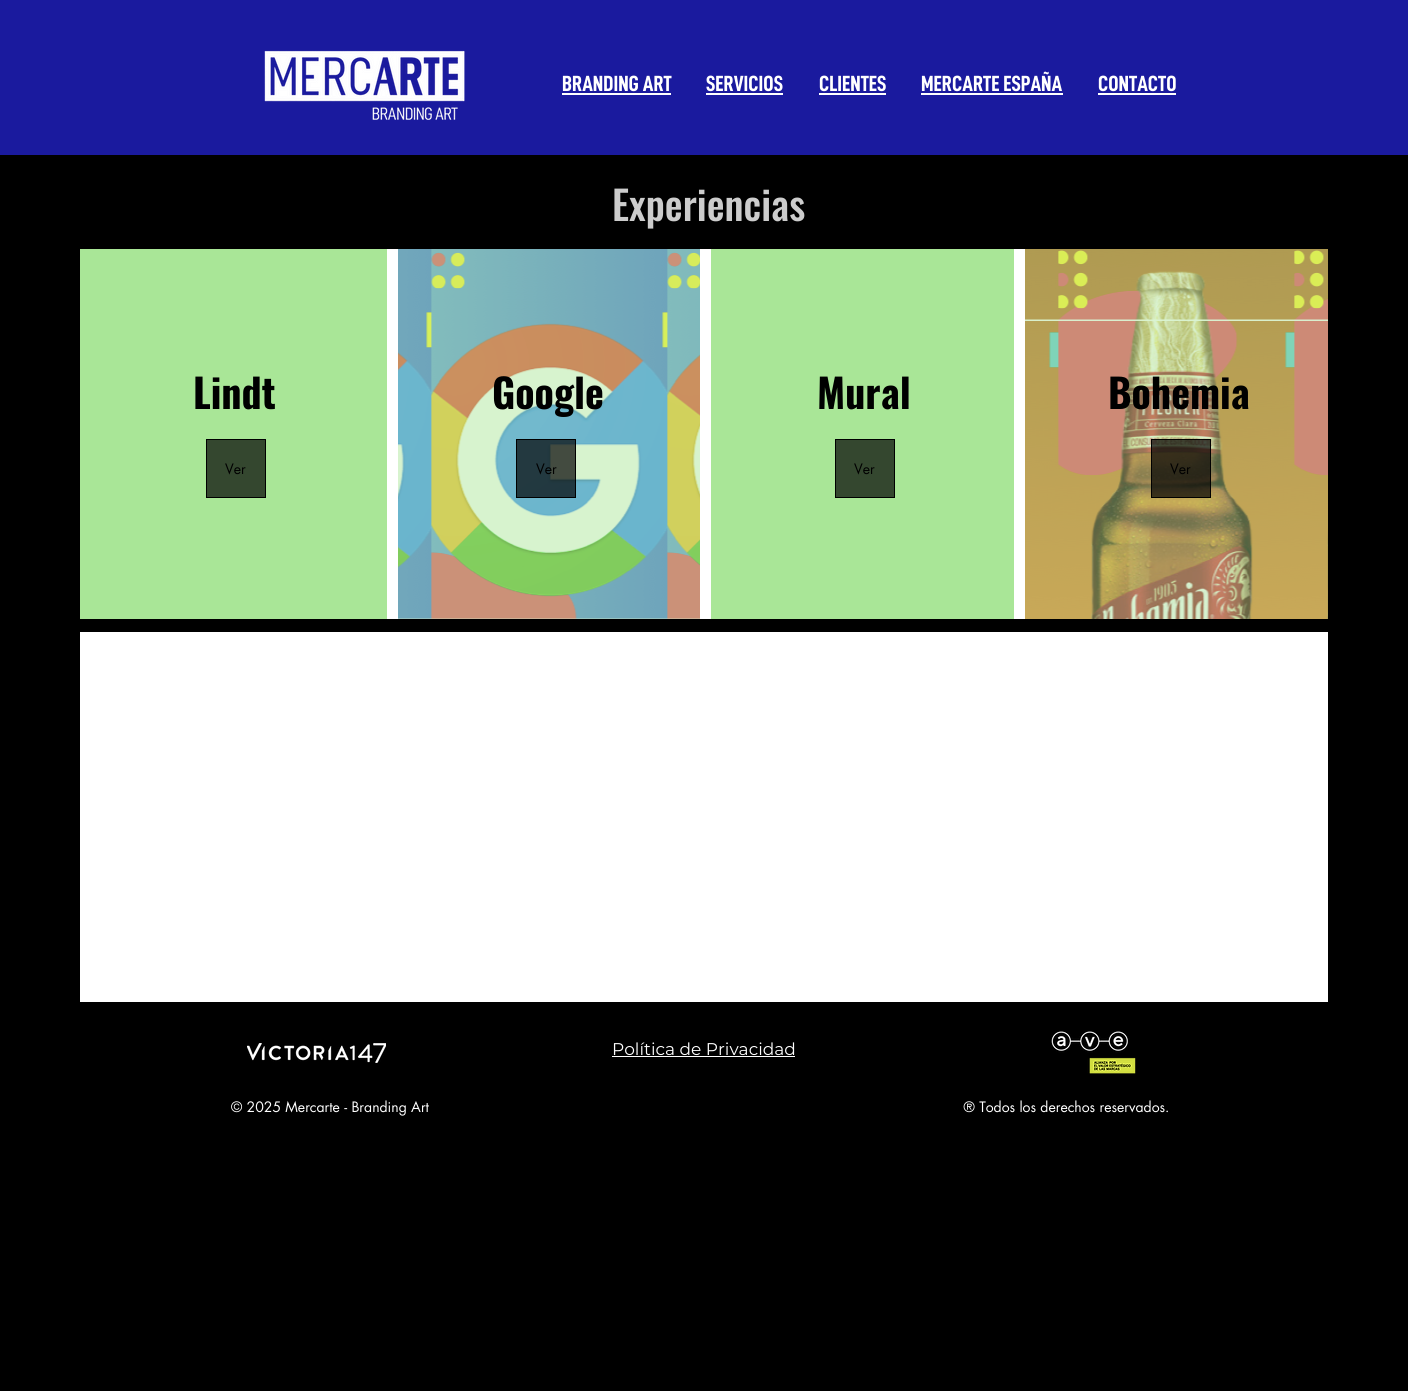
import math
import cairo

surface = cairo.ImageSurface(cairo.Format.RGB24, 1408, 1391)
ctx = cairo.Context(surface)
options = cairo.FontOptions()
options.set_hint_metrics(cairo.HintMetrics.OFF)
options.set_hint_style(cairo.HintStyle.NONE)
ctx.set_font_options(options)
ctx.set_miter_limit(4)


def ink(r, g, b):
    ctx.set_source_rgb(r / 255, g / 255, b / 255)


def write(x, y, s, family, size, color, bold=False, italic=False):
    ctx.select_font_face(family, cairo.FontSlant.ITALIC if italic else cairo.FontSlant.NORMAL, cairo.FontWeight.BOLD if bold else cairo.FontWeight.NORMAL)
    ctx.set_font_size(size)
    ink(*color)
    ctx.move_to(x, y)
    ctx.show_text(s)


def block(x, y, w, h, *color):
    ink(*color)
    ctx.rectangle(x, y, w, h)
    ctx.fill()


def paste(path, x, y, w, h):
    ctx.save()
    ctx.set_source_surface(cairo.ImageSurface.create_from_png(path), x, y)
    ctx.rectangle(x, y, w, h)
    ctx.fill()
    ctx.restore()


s1 = dict(family="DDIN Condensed", size=22, color=(255, 255, 255), bold=True)
s2 = dict(family="Oswald Medium", size=40, color=(204, 204, 204))
s3 = dict(family="Oswald", size=40, color=(0, 0, 0), bold=True)
s4 = dict(family="futura", size=14, color=(0, 0, 0))
s5 = dict(family="Montserrat", size=17, color=(255, 255, 255))
s6 = dict(family="futura", size=14, color=(255, 255, 255))

ink(0, 0, 0)
ctx.paint()
block(0, 0, 1408, 155, 26, 26, 158)
paste("pic1.png", 264, 50, 201, 70)
write(562, 91, "BRANDING ART", **s1)
block(562, 93, 109, 2, 255, 255, 255)
write(706, 91, "SERVICIOS", **s1)
block(706, 93, 77, 2, 255, 255, 255)
write(819, 91, "CLIENTES", **s1)
block(819, 93, 67, 2, 255, 255, 255)
write(921, 91, "MERCARTE ESPAÑA", **s1)
block(921, 93, 142, 2, 255, 255, 255)
write(1098, 91, "CONTACTO", **s1)
block(1098, 93, 78, 2, 255, 255, 255)
write(612, 221, "Experiencias", **s2)
block(387, 249, 638, 370, 255, 255, 255)
block(80, 249, 307, 370, 169, 230, 151)
write(193, 409, "Lindt", **s3)
ink(52, 71, 47)
ctx.rectangle(206.5, 439.5, 59, 58)
ctx.fill_preserve()
ink(0, 0, 0)
ctx.set_line_width(1)
ctx.stroke()
write(225, 474, "Ver", **s4)
block(398, 249, 302, 370, 169, 230, 151)
paste("pic2.png", 398, 249, 302, 370)
write(492, 409, "Google", **s3)
ctx.set_source_rgba(0, 0, 0, 0.69)
ctx.rectangle(516.5, 439.5, 59, 58)
ctx.fill_preserve()
ink(0, 0, 0)
ctx.stroke()
write(536, 474, "Ver", **s4)
block(711, 249, 303, 370, 169, 230, 151)
write(817, 409, "Mural", **s3)
ink(52, 71, 47)
ctx.rectangle(835.5, 439.5, 59, 58)
ctx.fill_preserve()
ink(0, 0, 0)
ctx.stroke()
write(854, 474, "Ver", **s4)
block(1025, 249, 303, 370, 169, 230, 151)
paste("pic3.png", 1025, 249, 303, 370)
write(1108, 409, "Bohemia", **s3)
ctx.set_source_rgba(0, 0, 0, 0.69)
ctx.rectangle(1151.5, 439.5, 59, 58)
ctx.fill_preserve()
ink(0, 0, 0)
ctx.stroke()
write(1170, 474, "Ver", **s4)
block(80, 632, 1248, 370, 255, 255, 255)
paste("pic4.png", 247, 1043, 139, 20)
write(612, 1055, "Política de Privacidad", **s5)
block(612, 1056, 183, 1, 255, 255, 255)
paste("pic5.png", 1051, 1031, 85, 43)
write(231, 1112, "© 2025 Mercarte - Branding Art                                                                                                                            ® Todos los derechos reservados.", **s6)
surface.write_to_png("screenshot.png")
